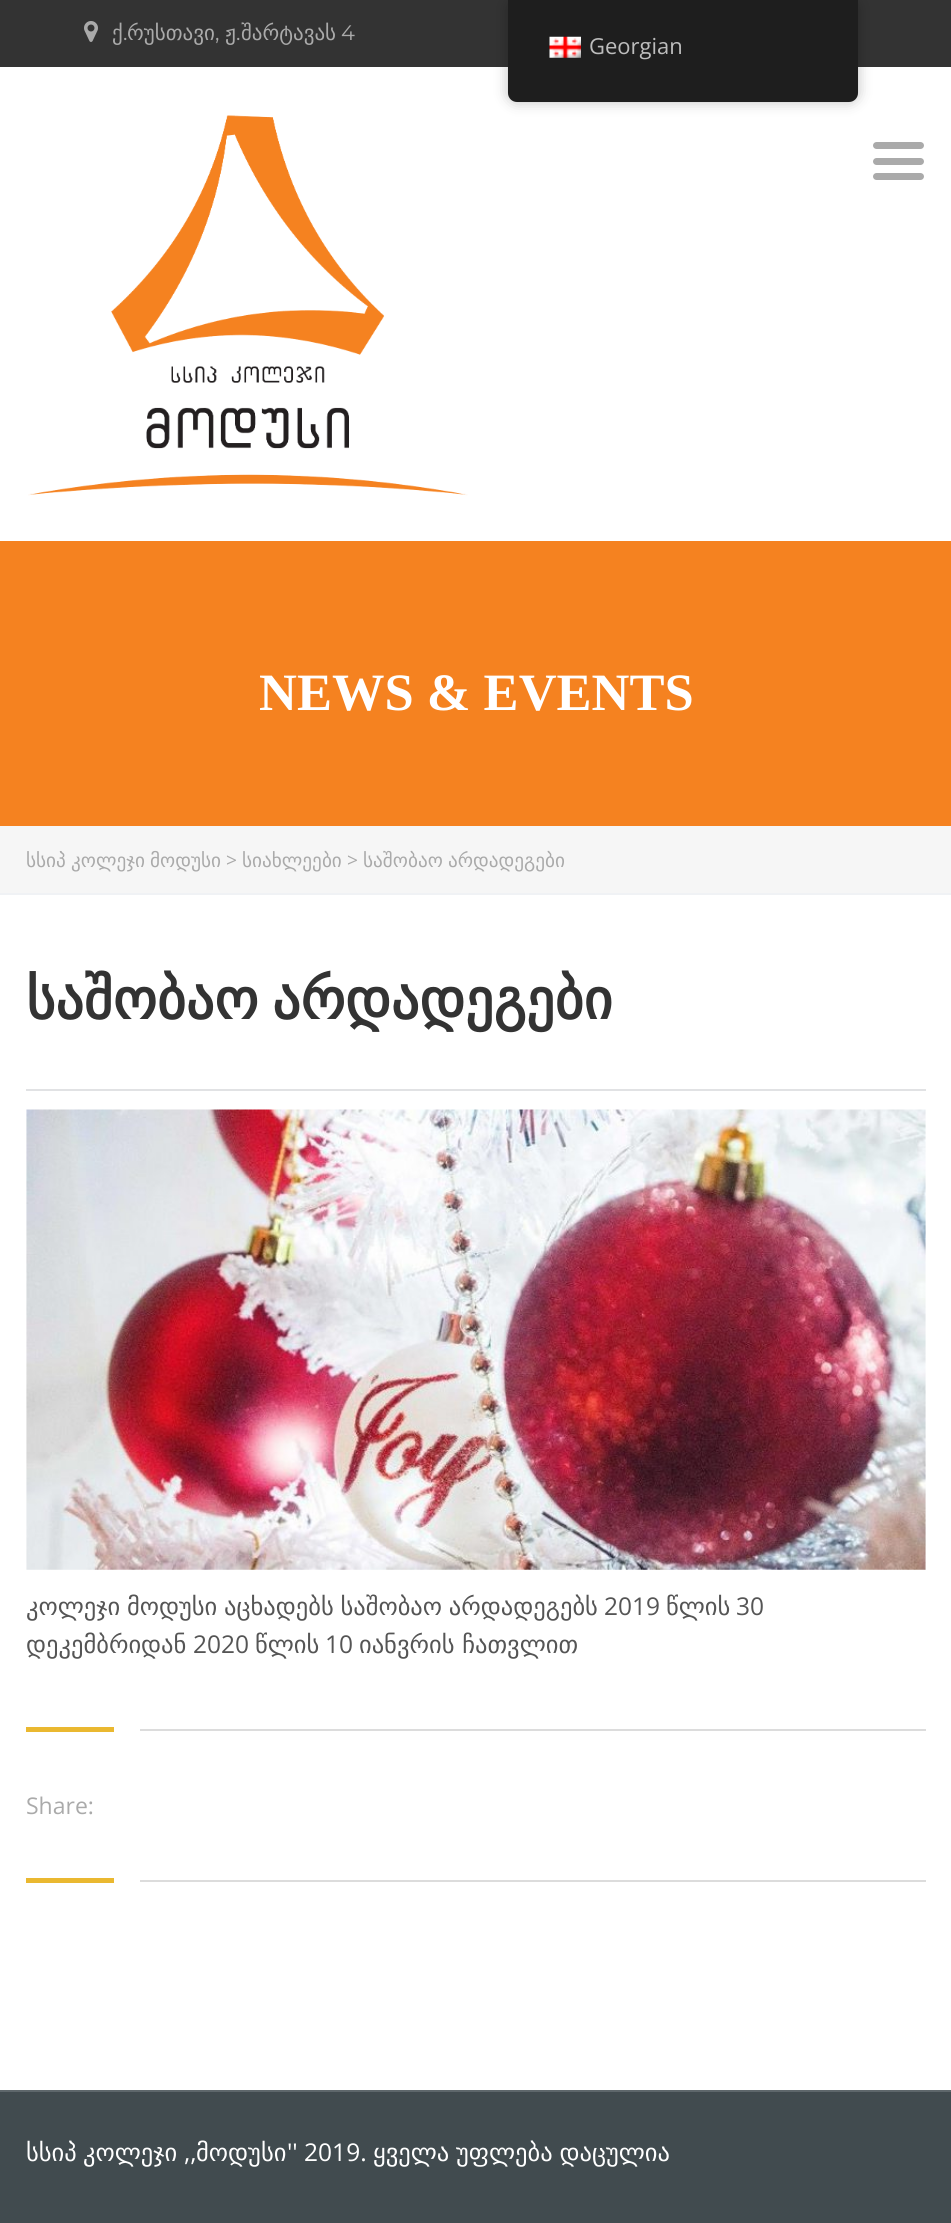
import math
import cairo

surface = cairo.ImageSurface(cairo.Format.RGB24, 951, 2223)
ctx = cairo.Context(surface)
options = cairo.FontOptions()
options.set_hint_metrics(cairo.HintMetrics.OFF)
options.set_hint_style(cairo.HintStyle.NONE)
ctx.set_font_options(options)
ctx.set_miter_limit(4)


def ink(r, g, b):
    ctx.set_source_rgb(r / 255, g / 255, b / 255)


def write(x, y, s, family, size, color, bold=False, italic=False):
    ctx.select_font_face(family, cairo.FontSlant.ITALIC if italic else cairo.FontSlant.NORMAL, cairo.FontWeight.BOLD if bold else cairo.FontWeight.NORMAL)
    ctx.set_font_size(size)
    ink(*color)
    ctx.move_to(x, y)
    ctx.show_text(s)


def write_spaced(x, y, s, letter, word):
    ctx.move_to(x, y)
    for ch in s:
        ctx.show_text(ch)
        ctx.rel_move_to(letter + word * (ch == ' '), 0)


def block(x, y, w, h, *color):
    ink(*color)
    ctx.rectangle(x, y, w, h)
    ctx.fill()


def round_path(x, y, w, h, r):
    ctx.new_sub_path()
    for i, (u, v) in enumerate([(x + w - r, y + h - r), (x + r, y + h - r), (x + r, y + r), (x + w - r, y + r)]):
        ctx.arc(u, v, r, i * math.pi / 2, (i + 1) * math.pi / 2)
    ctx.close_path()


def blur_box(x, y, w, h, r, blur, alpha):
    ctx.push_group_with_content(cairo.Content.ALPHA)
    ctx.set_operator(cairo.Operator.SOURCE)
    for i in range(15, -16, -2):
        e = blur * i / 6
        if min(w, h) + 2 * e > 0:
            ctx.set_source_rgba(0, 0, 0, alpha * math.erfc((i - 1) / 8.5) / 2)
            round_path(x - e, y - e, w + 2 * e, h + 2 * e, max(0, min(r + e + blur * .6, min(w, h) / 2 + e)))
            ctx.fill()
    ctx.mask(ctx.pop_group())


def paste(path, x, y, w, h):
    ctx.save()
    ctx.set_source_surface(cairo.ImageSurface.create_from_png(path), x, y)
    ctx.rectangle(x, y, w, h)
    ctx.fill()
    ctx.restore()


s1 = dict(family="DejaVu Sans", size=21, color=(170, 170, 170))
s2 = dict(family="Montserrat", size=21, color=(170, 170, 170))
s3 = dict(family="Liberation Serif", size=52.5, color=(255, 255, 255), bold=True)
s4 = dict(family="Open Sans", size=19.25, color=(170, 170, 170))
s5 = dict(family="DejaVu Sans", size=19.25, color=(170, 170, 170))
s6 = dict(family="Open Sans", size=24.5, color=(85, 85, 85))
s7 = dict(family="DejaVu Sans", size=24.5, color=(85, 85, 85))
s8 = dict(family="Open Sans", size=23, color=(170, 170, 170))
s9 = dict(family="Open Sans", size=22, color=(189, 189, 189))
s10 = dict(family="DejaVu Sans", size=24.5, color=(255, 255, 255))
s11 = dict(family="Open Sans", size=24.5, color=(255, 255, 255))

ink(255, 255, 255)
ctx.paint()
block(0, 0, 951, 67, 51, 51, 51)
paste("pic1.png", 84, 21, 14, 21)
write(112, 40, "ქ", **s1)
write(123, 40, ".", **s2)
write(127, 40, "რუსთავი", **s1)
write(215, 40, ",", **s2)
write(225, 40, "ჟ", **s1)
write(236, 40, ".", **s2)
write(241, 40, "შარტავას", **s1)
write(341, 40, "4", **s2)
paste("pic2.png", 28, 115, 440, 381)
round_path(873, 142, 51, 7, 3.5)
ctx.fill()
round_path(873, 158, 51, 7, 3.5)
ctx.fill()
round_path(873, 173, 51, 7, 3.5)
ctx.fill()
block(0, 541, 951, 285, 245, 130, 32)
write(259, 710, "NEWS & EVENTS", **s3)
block(0, 826, 951, 67, 246, 246, 246)
block(0, 893, 951, 2, 240, 242, 245)
ctx.select_font_face("DejaVu Sans")
ctx.set_font_size(19.25)
ink(170, 170, 170)
write_spaced(26, 867, "სსიპ კოლეჯი მოდუსი", 0, -1)
write(226, 867, ">", **s4)
write(242, 867, "სიახლეები", **s5)
write(347, 867, ">", **s4)
ctx.select_font_face("DejaVu Sans")
write_spaced(363, 867, "საშობაო არდადეგები", 0, -1)
block(26, 1089, 900, 2, 225, 226, 228)
ctx.select_font_face("DejaVu Sans", cairo.FontSlant.NORMAL, cairo.FontWeight.BOLD)
ctx.set_font_size(56)
ink(51, 51, 51)
write_spaced(26, 1019, "საშობაო არდადეგები", 0, -4)
paste("pic3.png", 26, 1109, 900, 461)
ctx.select_font_face("DejaVu Sans")
ctx.set_font_size(24.5)
ink(85, 85, 85)
write_spaced(26, 1615, "კოლეჯი მოდუსი აცხადებს საშობაო არდადეგებს", 0, -1)
write(604, 1615, "2019", **s6)
write(666, 1615, "წლის", **s7)
write(736, 1615, "30", **s6)
write(26, 1653, "დეკემბრიდან", **s7)
write(193, 1653, "2020", **s6)
write(255, 1653, "წლის", **s7)
write(325, 1653, "10", **s6)
write(359, 1653, "იანვრის ჩათვლით", **s7)
block(26, 1727, 88, 5, 234, 184, 48)
block(140, 1729, 786, 2, 220, 220, 220)
write(26, 1814, "Share:", **s8)
block(26, 1878, 88, 5, 234, 184, 48)
block(140, 1880, 786, 2, 220, 220, 220)
ink(0, 0, 0)
blur_box(508, 0, 350, 102, 9, 7, 0.25)
ink(30, 30, 30)
ctx.new_path()
ctx.move_to(508, 0)
ctx.line_to(858, 0)
ctx.line_to(858, 93)
ctx.curve_to(858, 98, 854, 102, 849, 102)
ctx.line_to(517, 102)
ctx.curve_to(512, 102, 508, 98, 508, 93)
ctx.close_path()
ctx.fill()
paste("pic4.png", 549, 36, 32, 22)
write(589, 54, "Georgian", **s9)
block(0, 2092, 951, 131, 65, 75, 79)
block(0, 2090, 951, 2, 94, 103, 107)
write(26, 2161, "სსიპ", **s10)
write(83, 2161, "კოლეჯი", **s10)
write(184, 2161, ",,", **s11)
write(196, 2161, "მოდუსი", **s10)
write(287, 2161, "'' 2019.", **s11)
ctx.select_font_face("DejaVu Sans")
write_spaced(373, 2161, "ყველა უფლება დაცულია", 0, -1)
surface.write_to_png("screenshot.png")
